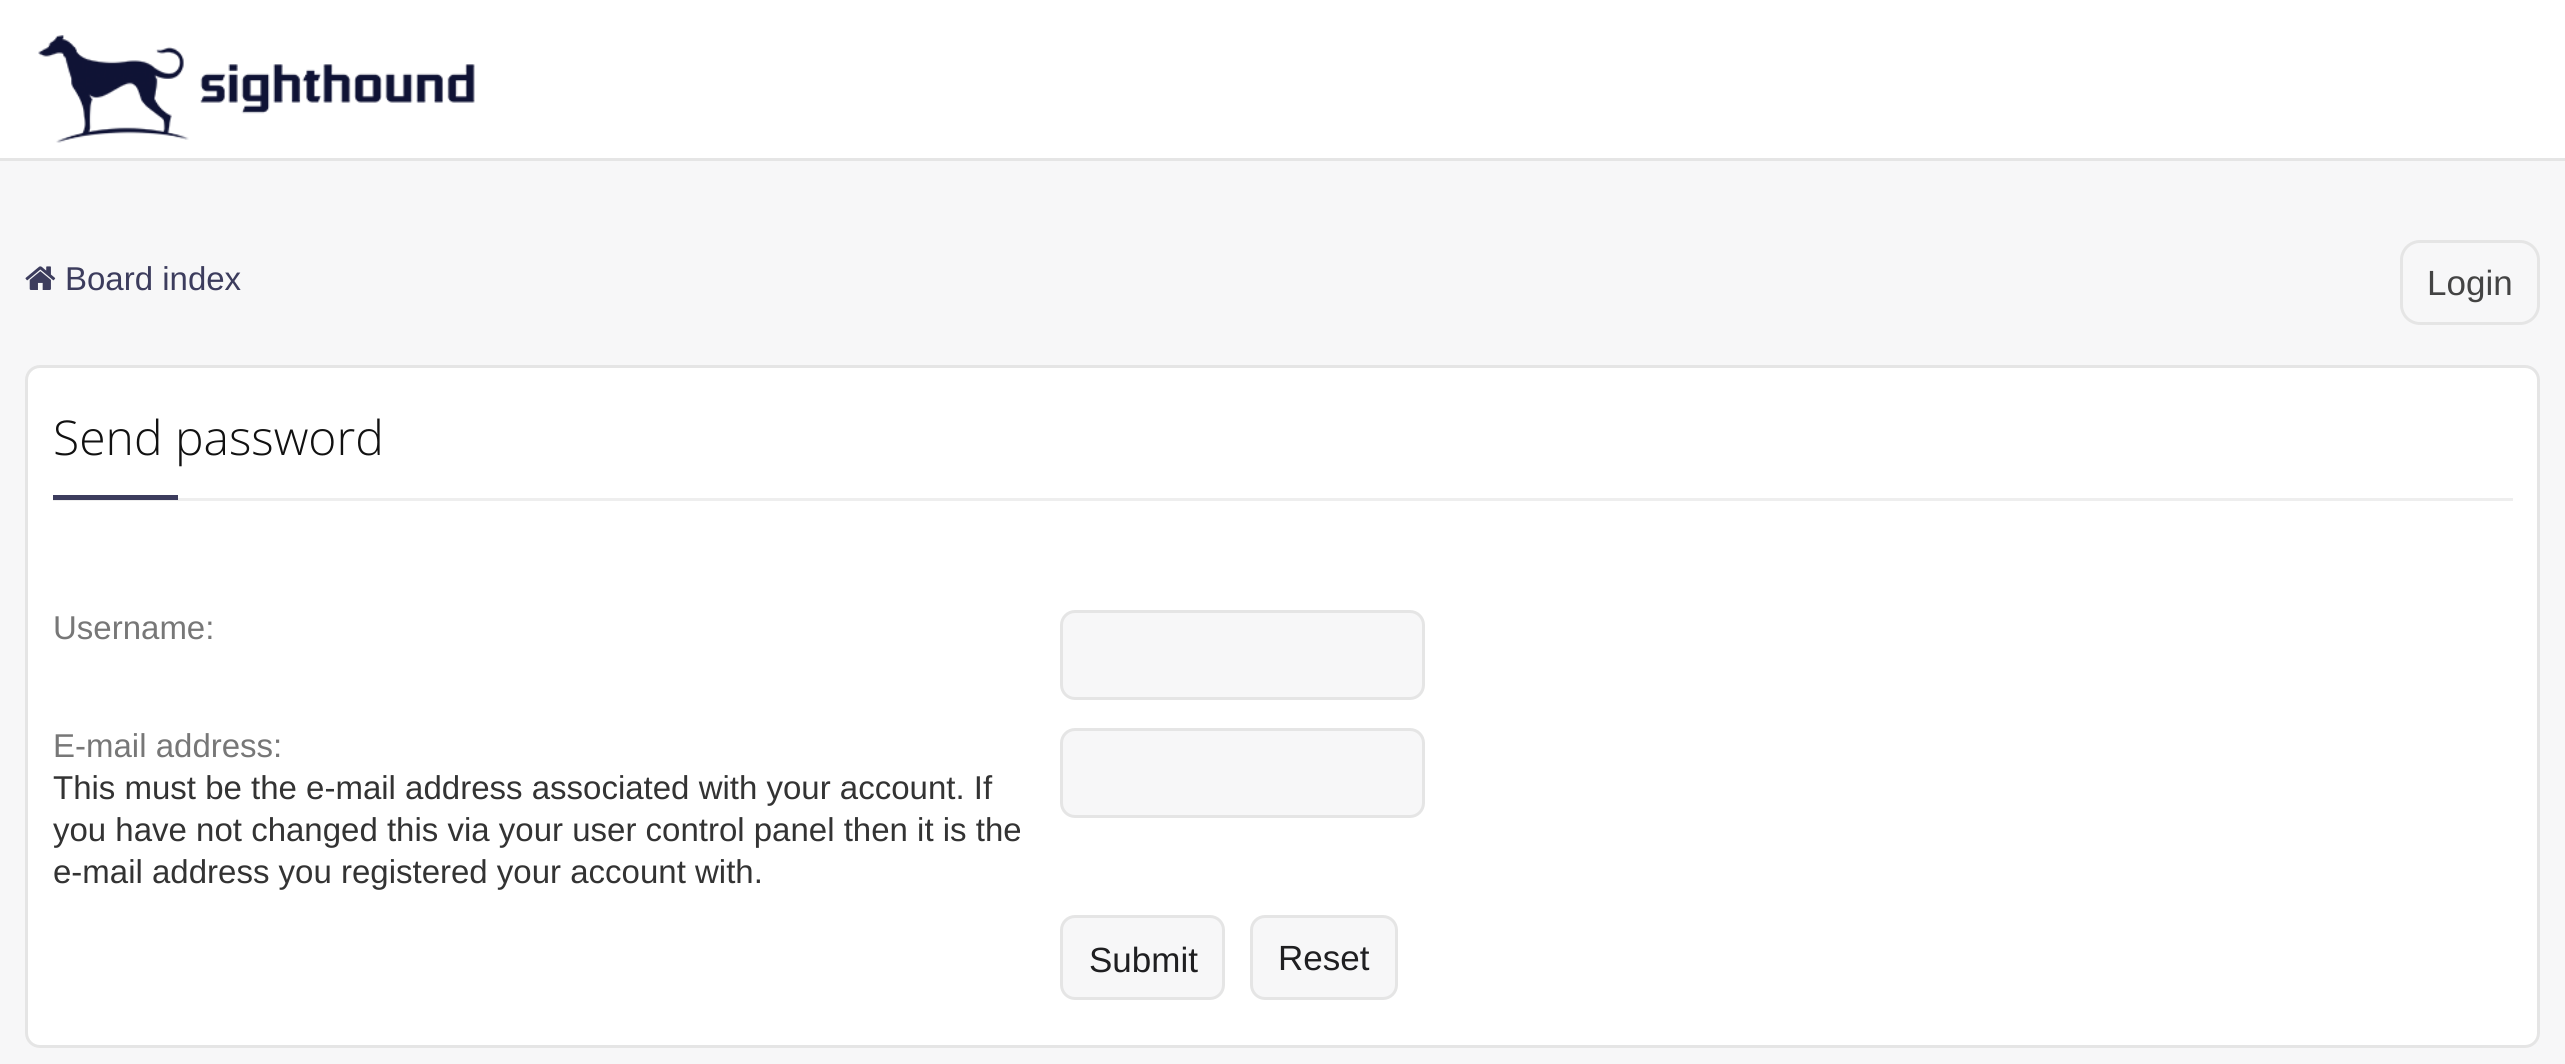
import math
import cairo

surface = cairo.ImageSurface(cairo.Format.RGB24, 2565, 1064)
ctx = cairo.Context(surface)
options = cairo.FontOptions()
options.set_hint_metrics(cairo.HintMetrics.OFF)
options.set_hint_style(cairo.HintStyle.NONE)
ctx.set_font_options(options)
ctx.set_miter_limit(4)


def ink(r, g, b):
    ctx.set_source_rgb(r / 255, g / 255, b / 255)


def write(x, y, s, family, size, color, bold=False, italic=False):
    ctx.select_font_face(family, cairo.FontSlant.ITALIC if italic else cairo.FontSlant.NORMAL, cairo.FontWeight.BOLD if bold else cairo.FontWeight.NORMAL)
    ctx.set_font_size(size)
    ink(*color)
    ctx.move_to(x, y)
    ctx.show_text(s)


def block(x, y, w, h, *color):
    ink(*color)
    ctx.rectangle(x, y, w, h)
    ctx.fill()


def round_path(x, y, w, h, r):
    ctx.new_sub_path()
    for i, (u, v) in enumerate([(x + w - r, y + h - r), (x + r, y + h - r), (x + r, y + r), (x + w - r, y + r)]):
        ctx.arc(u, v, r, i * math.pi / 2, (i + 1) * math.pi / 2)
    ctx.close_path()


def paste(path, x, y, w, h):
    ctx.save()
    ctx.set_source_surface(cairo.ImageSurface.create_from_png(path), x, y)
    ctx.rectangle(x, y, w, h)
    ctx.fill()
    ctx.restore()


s1 = dict(family="Liberation Sans", size=33, color=(60, 60, 93))
s2 = dict(family="Open Sans Light", size=48, color=(17, 17, 17))
s3 = dict(family="Liberation Sans", size=33, color=(119, 119, 119))
s4 = dict(family="Liberation Sans", size=33, color=(51, 51, 51))
s5 = dict(family="Liberation Sans", size=35, color=(31, 31, 33))
s6 = dict(family="Liberation Sans", size=35, color=(68, 68, 68))

ink(247, 247, 248)
ctx.paint()
paste("pic1.png", 25, 266, 31, 24)
write(65, 290, "Board index", **s1)
ink(255, 255, 255)
round_path(26.5, 366.5, 2512, 680, 13.5)
ctx.fill_preserve()
ink(229, 229, 229)
ctx.set_line_width(3)
ctx.stroke()
block(53, 498, 2460, 3, 238, 238, 238)
write(53, 455, "Send password", **s2)
block(53, 495, 125, 5, 60, 60, 93)
write(53, 639, "Username:", **s3)
ink(247, 247, 248)
round_path(1061.5, 611.5, 362, 87, 13.5)
ctx.fill_preserve()
ink(229, 229, 229)
ctx.stroke()
write(53, 757, "E-mail address:", **s3)
write(53, 799, "This must be the e-mail address associated with your account. If", **s4)
write(53, 841, "you have not changed this via your user control panel then it is the", **s4)
write(53, 883, "e-mail address you registered your account with.", **s4)
ink(247, 247, 248)
round_path(1061.5, 729.5, 362, 87, 13.5)
ctx.fill_preserve()
ink(229, 229, 229)
ctx.stroke()
ink(247, 247, 248)
round_path(1061.5, 916.5, 162, 82, 13.5)
ctx.fill_preserve()
ink(229, 229, 229)
ctx.stroke()
write(1089, 972, "Submit", **s5)
ink(247, 247, 248)
round_path(1251.5, 916.5, 145, 82, 13.5)
ctx.fill_preserve()
ink(229, 229, 229)
ctx.stroke()
write(1278, 970, "Reset", **s5)
block(0, 0, 2565, 158, 255, 255, 255)
block(0, 158, 2565, 3, 229, 229, 229)
paste("pic2.png", 38, 35, 437, 108)
round_path(2401.5, 241.5, 137, 82, 18.5)
ctx.stroke()
write(2427, 295, "Login", **s6)
surface.write_to_png("screenshot.png")
